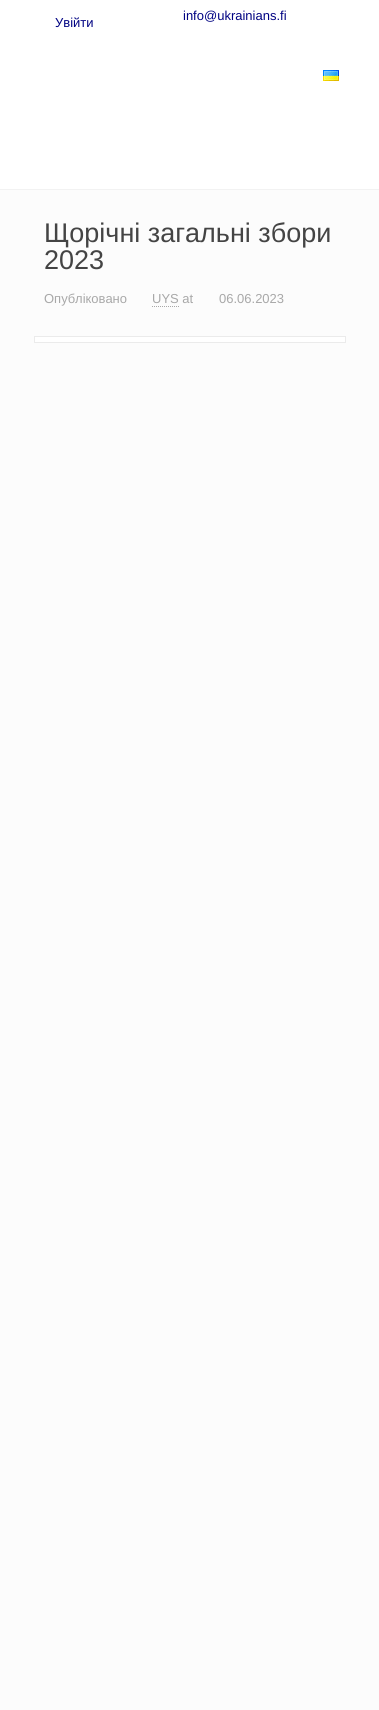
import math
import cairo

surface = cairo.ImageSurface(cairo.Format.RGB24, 379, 1710)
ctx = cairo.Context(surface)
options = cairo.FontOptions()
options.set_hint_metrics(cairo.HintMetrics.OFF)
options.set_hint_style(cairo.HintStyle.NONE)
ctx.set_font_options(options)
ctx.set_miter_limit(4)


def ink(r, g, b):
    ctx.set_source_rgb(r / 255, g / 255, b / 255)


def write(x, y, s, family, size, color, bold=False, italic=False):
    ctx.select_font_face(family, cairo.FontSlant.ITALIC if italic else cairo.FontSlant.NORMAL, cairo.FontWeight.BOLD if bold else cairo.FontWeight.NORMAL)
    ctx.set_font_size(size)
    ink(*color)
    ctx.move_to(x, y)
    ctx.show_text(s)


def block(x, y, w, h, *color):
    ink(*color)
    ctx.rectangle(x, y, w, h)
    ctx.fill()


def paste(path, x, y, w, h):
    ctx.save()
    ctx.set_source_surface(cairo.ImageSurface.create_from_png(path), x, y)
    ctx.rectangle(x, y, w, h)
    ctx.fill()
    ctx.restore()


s1 = dict(family="Liberation Sans", size=13, color=(0, 2, 130))
s2 = dict(family="Liberation Sans", size=27, color=(68, 68, 68))
s3 = dict(family="Liberation Sans", size=13, color=(168, 168, 168))

ink(252, 252, 252)
ctx.paint()
block(0, 0, 379, 189, 255, 255, 255)
write(55, 27, "Увійти", **s1)
write(183, 20, "info@ukrainians.fi", **s1)
paste("pic1.png", 323, 70, 16, 11)
block(0, 189, 379, 1, 242, 242, 242)
write(44, 242, "Щорічні загальні збори", **s2)
write(44, 269, "2023", **s2)
write(44, 303, "Опубліковано", **s3)
write(152, 303, "UYS at", **s3)
ctx.new_path()
ctx.move_to(152, 306.5)
ctx.line_to(179, 306.5)
ctx.set_line_width(1)
ctx.set_dash([1, 1])
ctx.stroke()
write(219, 303, "06.06.2023", **s3)
ink(255, 255, 255)
ctx.rectangle(34.5, 336.5, 311, 6)
ctx.fill_preserve()
ink(235, 235, 235)
ctx.set_dash([])
ctx.stroke()
surface.write_to_png("screenshot.png")
